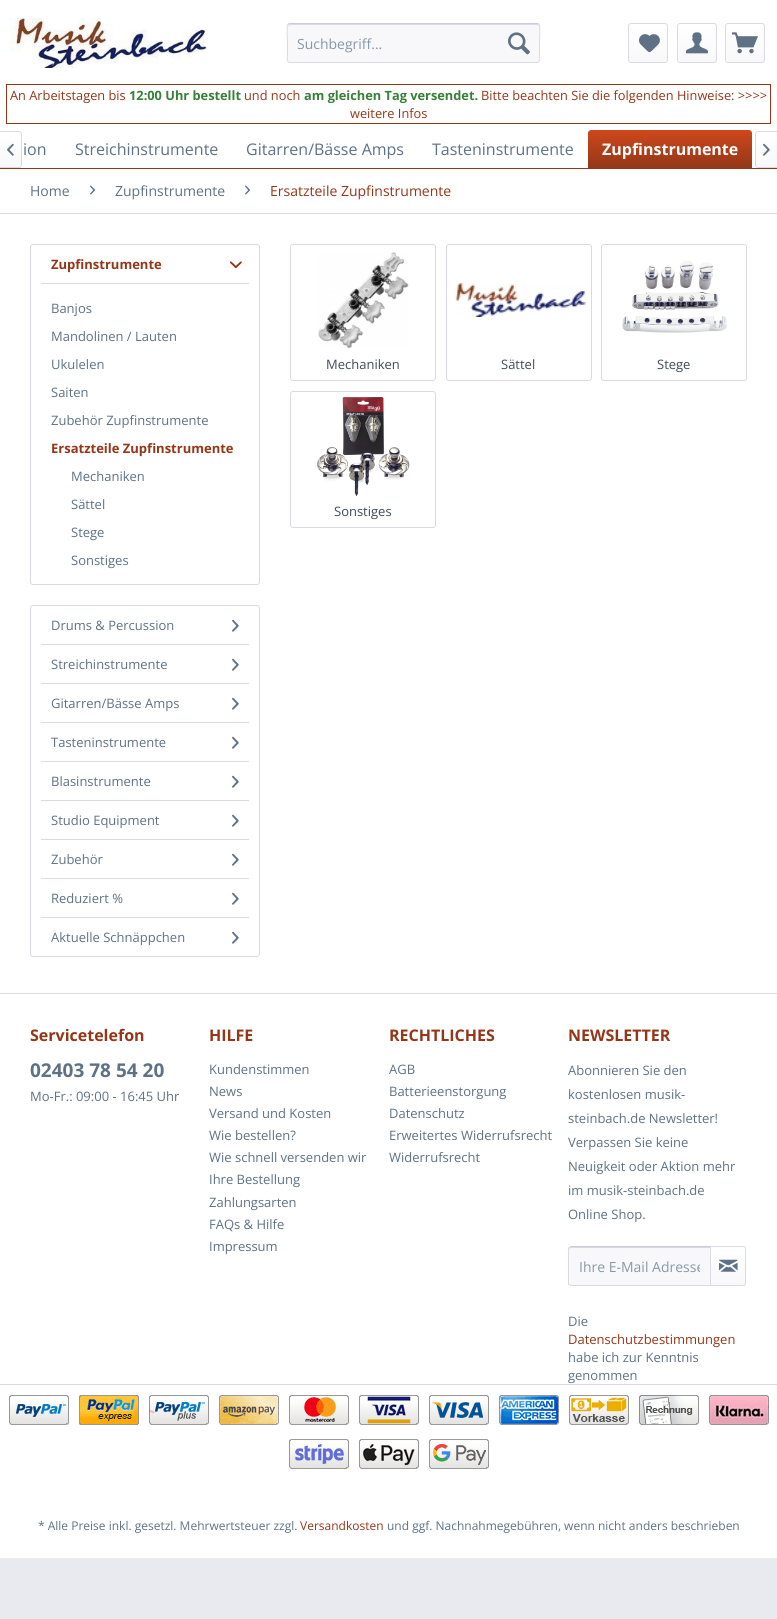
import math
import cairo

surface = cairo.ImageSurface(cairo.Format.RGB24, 777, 1619)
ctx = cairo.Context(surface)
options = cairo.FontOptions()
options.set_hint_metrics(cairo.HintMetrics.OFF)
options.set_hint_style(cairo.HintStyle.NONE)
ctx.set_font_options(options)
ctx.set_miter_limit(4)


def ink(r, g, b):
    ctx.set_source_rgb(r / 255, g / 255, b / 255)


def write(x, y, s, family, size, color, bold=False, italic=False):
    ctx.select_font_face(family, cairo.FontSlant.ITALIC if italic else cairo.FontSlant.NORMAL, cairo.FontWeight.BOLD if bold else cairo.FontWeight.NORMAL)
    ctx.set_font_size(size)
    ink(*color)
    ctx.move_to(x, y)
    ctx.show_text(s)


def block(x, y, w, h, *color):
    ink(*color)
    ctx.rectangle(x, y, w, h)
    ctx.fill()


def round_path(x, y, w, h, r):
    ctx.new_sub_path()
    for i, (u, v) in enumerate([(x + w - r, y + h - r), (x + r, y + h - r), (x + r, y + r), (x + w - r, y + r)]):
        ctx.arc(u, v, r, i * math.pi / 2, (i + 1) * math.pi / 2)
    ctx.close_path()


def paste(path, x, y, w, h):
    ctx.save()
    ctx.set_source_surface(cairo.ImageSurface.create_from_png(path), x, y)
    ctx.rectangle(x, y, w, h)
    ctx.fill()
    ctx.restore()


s1 = dict(family="Open Sans", size=14, color=(135, 152, 169))
s2 = dict(family="Open Sans", size=12.8, color=(148, 55, 24))
s3 = dict(family="Open Sans", size=12.8, color=(56, 128, 56), bold=True)
s4 = dict(family="Open Sans", size=16, color=(95, 114, 133))
s5 = dict(family="Open Sans", size=16, color=(255, 255, 255), bold=True)
s6 = dict(family="Open Sans", size=14, color=(95, 114, 133))
s7 = dict(family="Open Sans", size=14, color=(148, 55, 24))
s8 = dict(family="Open Sans", size=13, color=(148, 55, 24), bold=True)
s9 = dict(family="Open Sans", size=13, color=(95, 114, 133))
s10 = dict(family="Open Sans", size=13, color=(63, 76, 88))
s11 = dict(family="Open Sans", size=16, color=(148, 55, 24), bold=True)
s12 = dict(family="Open Sans", size=19, color=(95, 114, 133), bold=True)
s13 = dict(family="Open Sans", size=13, color=(148, 55, 24))
s14 = dict(family="Open Sans", size=12, color=(95, 114, 133))
s15 = dict(family="Open Sans", size=12, color=(148, 55, 24))

ink(233, 233, 240)
ctx.paint()
block(0, 0, 777, 168, 255, 255, 255)
paste("pic1.png", 10, 18, 197, 50)
ink(248, 248, 250)
round_path(287, 23, 253, 40, 3)
ctx.fill()
ink(218, 218, 229)
ctx.new_path()
ctx.move_to(290, 25)
ctx.line_to(537, 25)
ctx.curve_to(538, 25, 539, 26, 539, 27)
ctx.curve_to(539, 26, 539, 24, 537, 24)
ctx.line_to(290, 24)
ctx.curve_to(288, 24, 288, 26, 288, 27)
ctx.curve_to(288, 26, 289, 25, 290, 25)
ctx.close_path()
ctx.fill()
ctx.new_path()
ctx.move_to(288, 24)
ctx.line_to(290, 23.5)
ctx.line_to(537, 23.5)
ctx.line_to(539, 24)
ink(203, 203, 219)
ctx.set_line_width(1)
ctx.stroke()
ctx.new_path()
ctx.move_to(539, 24)
ctx.curve_to(540.5, 26, 539.5, 40, 539.5, 43)
ctx.line_to(539.5, 54.5)
ctx.curve_to(539.5, 56, 541, 62.5, 537, 62.5)
ctx.line_to(290, 62.5)
ctx.curve_to(286, 62.5, 287.5, 56, 287.5, 54.5)
ctx.line_to(287.5, 43)
ctx.curve_to(287.5, 40, 286.5, 26, 288, 24)
ink(218, 218, 229)
ctx.stroke()
write(297, 49, "Suchbegriff...", **s1)
paste("pic2.png", 508, 32, 22, 23)
gradient = cairo.LinearGradient(648, 24, 648, 62)
gradient.add_color_stop_rgba(0, 1, 1, 1, 1)
gradient.add_color_stop_rgba(1, 0.973, 0.973, 0.98, 1)
ctx.set_source(gradient)
round_path(629, 24, 38, 38, 2)
ctx.fill()
round_path(628.5, 23.5, 39, 39, 2.5)
ink(218, 218, 229)
ctx.stroke()
paste("pic3.png", 639, 34, 21, 19)
gradient = cairo.LinearGradient(697, 24, 697, 62)
gradient.add_color_stop_rgba(0, 1, 1, 1, 1)
gradient.add_color_stop_rgba(1, 0.973, 0.973, 0.98, 1)
ctx.set_source(gradient)
round_path(678, 24, 38, 38, 2)
ctx.fill()
round_path(677.5, 23.5, 39, 39, 2.5)
ink(218, 218, 229)
ctx.stroke()
paste("pic4.png", 686, 32, 22, 22)
gradient = cairo.LinearGradient(745, 24, 745, 62)
gradient.add_color_stop_rgba(0, 1, 1, 1, 1)
gradient.add_color_stop_rgba(1, 0.973, 0.973, 0.98, 1)
ctx.set_source(gradient)
round_path(726, 24, 38, 38, 2)
ctx.fill()
round_path(725.5, 23.5, 39, 39, 2.5)
ink(218, 218, 229)
ctx.stroke()
paste("pic5.png", 732, 32, 26, 22)
ctx.rectangle(6.5, 84.5, 764, 39)
ink(148, 55, 24)
ctx.stroke()
write(10, 100, "An Arbeitstagen bis", **s2)
write(129, 100, "12:00 Uhr bestellt", **s3)
write(244, 100, "und noch", **s2)
write(304, 100, "am gleichen Tag versendet.", **s3)
write(481, 100, "Bitte beachten Sie die folgenden Hinweise: >>>>", **s2)
write(350, 118, "weitere Infos", **s2)
block(0, 168, 777, 1, 148, 55, 24)
gradient = cairo.LinearGradient(10, 132, 11, 167)
gradient.add_color_stop_rgba(0, 1, 1, 1, 1)
gradient.add_color_stop_rgba(1, 0.973, 0.973, 0.98, 1)
ctx.set_source(gradient)
ctx.new_path()
ctx.move_to(0, 132)
ctx.line_to(19, 132)
ctx.curve_to(20, 132, 21, 133, 21, 134)
ctx.line_to(21, 165)
ctx.curve_to(21, 166, 20, 167, 19, 167)
ctx.line_to(0, 167)
ctx.close_path()
ctx.fill()
ink(218, 218, 229)
ctx.set_fill_rule(cairo.FillRule.EVEN_ODD)
ctx.new_path()
ctx.move_to(0, 131)
ctx.line_to(19, 131)
ctx.curve_to(20.5, 131, 22, 132.5, 22, 134)
ctx.line_to(22, 165)
ctx.curve_to(22, 166.5, 20.5, 168, 19, 168)
ctx.line_to(0, 168)
ctx.close_path()
ctx.move_to(0, 132)
ctx.line_to(19, 132)
ctx.curve_to(20, 132, 21, 133, 21, 134)
ctx.line_to(21, 165)
ctx.curve_to(21, 166, 20, 167, 19, 167)
ctx.line_to(0, 167)
ctx.close_path()
ctx.fill()
paste("pic6.png", 7, 143, 7, 13)
write(23, 155, "ion", **s4)
write(75, 155, "Streichinstrumente", **s4)
write(246, 155, "Gitarren/Bässe Amps", **s4)
write(432, 155, "Tasteninstrumente", **s4)
gradient = cairo.LinearGradient(670, 130, 670, 168)
gradient.add_color_stop_rgba(0, 0.808, 0.282, 0.106, 1)
gradient.add_color_stop_rgba(1, 0.58, 0.216, 0.094, 1)
ctx.set_source(gradient)
ctx.new_path()
ctx.move_to(591, 130)
ctx.line_to(749, 130)
ctx.curve_to(750.5, 130, 752, 131.5, 752, 133)
ctx.line_to(752, 168)
ctx.line_to(588, 168)
ctx.line_to(588, 133)
ctx.curve_to(588, 131.5, 589.5, 130, 591, 130)
ctx.close_path()
ctx.fill()
write(602, 155, "Zupfinstrumente", **s5)
gradient = cairo.LinearGradient(767, 132, 767, 167)
gradient.add_color_stop_rgba(0, 1, 1, 1, 1)
gradient.add_color_stop_rgba(1, 0.973, 0.973, 0.98, 1)
ctx.set_source(gradient)
ctx.new_path()
ctx.move_to(758, 132)
ctx.line_to(777, 132)
ctx.line_to(777, 167)
ctx.line_to(758, 167)
ctx.curve_to(757, 167, 756, 166, 756, 165)
ctx.line_to(756, 134)
ctx.curve_to(756, 133, 757, 132, 758, 132)
ctx.close_path()
ctx.fill()
ink(218, 218, 229)
ctx.new_path()
ctx.move_to(758, 131)
ctx.line_to(777, 131)
ctx.line_to(777, 168)
ctx.line_to(758, 168)
ctx.curve_to(756.5, 168, 755, 166.5, 755, 165)
ctx.line_to(755, 134)
ctx.curve_to(755, 132.5, 756.5, 131, 758, 131)
ctx.close_path()
ctx.move_to(758, 132)
ctx.line_to(777, 132)
ctx.line_to(777, 167)
ctx.line_to(758, 167)
ctx.curve_to(757, 167, 756, 166, 756, 165)
ctx.line_to(756, 134)
ctx.curve_to(756, 133, 757, 132, 758, 132)
ctx.close_path()
ctx.fill()
paste("pic7.png", 763, 143, 7, 13)
block(0, 169, 777, 824, 255, 255, 255)
block(0, 213, 777, 1, 218, 218, 229)
write(30, 196, "Home", **s6)
paste("pic8.png", 90, 185, 5, 10)
write(115, 196, "Zupfinstrumente", **s6)
paste("pic8.png", 245, 185, 5, 10)
write(270, 196, "Ersatzteile Zupfinstrumente", **s7)
round_path(30.5, 244.5, 229, 340, 2.5)
ink(218, 218, 229)
ctx.stroke()
block(41, 283, 208, 1, 218, 218, 229)
write(51, 269, "Zupfinstrumente", **s8)
paste("pic9.png", 229, 261, 13, 8)
write(51, 313, "Banjos", **s9)
write(51, 341, "Mandolinen / Lauten", **s9)
write(51, 369, "Ukulelen", **s9)
write(51, 397, "Saiten", **s9)
write(51, 425, "Zubehör Zupfinstrumente", **s9)
write(51, 453, "Ersatzteile Zupfinstrumente", **s8)
write(71, 481, "Mechaniken", **s9)
write(71, 509, "Sättel", **s9)
write(71, 537, "Stege", **s9)
write(71, 565, "Sonstiges", **s9)
round_path(30.5, 605.5, 229, 351, 2.5)
ink(218, 218, 229)
ctx.stroke()
block(41, 644, 208, 1, 218, 218, 229)
write(51, 630, "Drums & Percussion", **s9)
paste("pic10.png", 232, 619, 7, 13)
block(41, 683, 208, 1, 218, 218, 229)
write(51, 669, "Streichinstrumente", **s9)
paste("pic10.png", 232, 658, 7, 13)
block(41, 722, 208, 1, 218, 218, 229)
write(51, 708, "Gitarren/Bässe Amps", **s9)
paste("pic10.png", 232, 697, 7, 13)
block(41, 761, 208, 1, 218, 218, 229)
write(51, 747, "Tasteninstrumente", **s9)
paste("pic10.png", 232, 736, 7, 13)
block(41, 800, 208, 1, 218, 218, 229)
write(51, 786, "Blasinstrumente", **s9)
paste("pic10.png", 232, 775, 7, 13)
block(41, 839, 208, 1, 218, 218, 229)
write(51, 825, "Studio Equipment", **s9)
paste("pic10.png", 232, 814, 7, 13)
block(41, 878, 208, 1, 218, 218, 229)
write(51, 864, "Zubehör", **s9)
paste("pic10.png", 232, 853, 7, 13)
block(41, 917, 208, 1, 218, 218, 229)
write(51, 903, "Reduziert %", **s9)
paste("pic10.png", 232, 892, 7, 13)
write(51, 942, "Aktuelle Schnäppchen", **s9)
paste("pic10.png", 232, 931, 7, 13)
round_path(290.5, 244.5, 145, 136, 2.5)
ink(218, 218, 229)
ctx.stroke()
paste("pic11.png", 318, 252, 91, 97)
write(326, 369, "Mechaniken", **s10)
round_path(446.5, 244.5, 145, 136, 2.5)
ink(218, 218, 229)
ctx.stroke()
paste("pic12.png", 454, 283, 132, 34)
write(501, 369, "Sättel", **s10)
round_path(601.5, 244.5, 145, 136, 2.5)
ink(218, 218, 229)
ctx.stroke()
paste("pic13.png", 622, 260, 105, 73)
write(657, 369, "Stege", **s10)
round_path(290.5, 391.5, 145, 136, 2.5)
ink(218, 218, 229)
ctx.stroke()
paste("pic14.png", 317, 397, 93, 100)
write(334, 516, "Sonstiges", **s10)
block(0, 994, 777, 564, 255, 255, 255)
block(0, 993, 777, 1, 218, 218, 229)
block(0, 1384, 777, 1, 218, 218, 229)
write(30, 1041, "Servicetelefon", **s11)
write(30, 1077, "02403 78 54 20", **s12)
write(30, 1101, "Mo-Fr.: 09:00 - 16:45 Uhr", **s9)
write(209, 1041, "HILFE", **s11)
write(209, 1074, "Kundenstimmen", **s9)
write(209, 1096, "News", **s9)
write(209, 1118, "Versand und Kosten", **s9)
write(209, 1140, "Wie bestellen?", **s9)
write(209, 1162, "Wie schnell versenden wir", **s9)
write(209, 1184, "Ihre Bestellung", **s9)
write(209, 1207, "Zahlungsarten", **s9)
write(209, 1229, "FAQs & Hilfe", **s9)
write(209, 1251, "Impressum", **s9)
write(389, 1041, "RECHTLICHES", **s11)
write(389, 1074, "AGB", **s9)
write(389, 1096, "Batterieenstorgung", **s9)
write(389, 1118, "Datenschutz", **s9)
write(389, 1140, "Erweitertes Widerrufsrecht", **s9)
write(389, 1162, "Widerrufsrecht", **s9)
write(568, 1041, "NEWSLETTER", **s11)
write(568, 1075, "Abonnieren Sie den", **s9)
write(568, 1099, "kostenlosen musik-", **s9)
write(568, 1123, "steinbach.de Newsletter!", **s9)
write(568, 1147, "Verpassen Sie keine", **s9)
write(568, 1171, "Neuigkeit oder Aktion mehr", **s9)
write(568, 1195, "im musik-steinbach.de", **s9)
write(568, 1219, "Online Shop.", **s9)
ink(248, 248, 250)
ctx.new_path()
ctx.move_to(571, 1247)
ctx.line_to(710, 1247)
ctx.line_to(710, 1285)
ctx.line_to(571, 1285)
ctx.curve_to(570, 1285, 569, 1284, 569, 1283)
ctx.line_to(569, 1249)
ctx.curve_to(569, 1248, 570, 1247, 571, 1247)
ctx.close_path()
ctx.fill()
ink(218, 218, 229)
ctx.set_fill_rule(cairo.FillRule.WINDING)
ctx.new_path()
ctx.move_to(571, 1248)
ctx.line_to(710, 1248)
ctx.line_to(710, 1247)
ctx.line_to(571, 1247)
ctx.curve_to(569, 1247, 569, 1249, 569, 1250)
ctx.curve_to(569, 1249, 570, 1248, 571, 1248)
ctx.close_path()
ctx.fill()
ink(203, 203, 219)
ctx.new_path()
ctx.move_to(571, 1246)
ctx.line_to(569, 1247)
ctx.line_to(570, 1248)
ctx.line_to(571, 1247)
ctx.line_to(710, 1247)
ctx.line_to(711, 1246)
ctx.close_path()
ctx.fill()
ink(218, 218, 229)
ctx.new_path()
ctx.move_to(711, 1286)
ctx.line_to(710, 1285)
ctx.line_to(571, 1285)
ctx.line_to(570, 1284)
ctx.line_to(569, 1285)
ctx.line_to(571, 1286)
ctx.close_path()
ctx.fill()
ctx.new_path()
ctx.move_to(568, 1249)
ctx.line_to(568, 1283)
ctx.curve_to(568, 1284, 568, 1285, 569, 1285)
ctx.line_to(569.5, 1284.5)
ctx.line_to(569, 1283)
ctx.line_to(569, 1249)
ctx.line_to(569.5, 1247.5)
ctx.line_to(569, 1247)
ctx.curve_to(568, 1247, 568, 1248, 568, 1249)
ctx.close_path()
ctx.fill()
ctx.save()
ctx.rectangle(579, 1257, 121, 19)
ctx.clip()
write(579, 1272, "Ihre E-Mail Adresse", **s1)
ctx.restore()
gradient = cairo.LinearGradient(728, 1247, 728, 1285)
gradient.add_color_stop_rgba(0, 1, 1, 1, 1)
gradient.add_color_stop_rgba(1, 0.973, 0.973, 0.98, 1)
ctx.set_source(gradient)
ctx.new_path()
ctx.move_to(711, 1247)
ctx.line_to(743, 1247)
ctx.curve_to(744, 1247, 745, 1248, 745, 1249)
ctx.line_to(745, 1283)
ctx.curve_to(745, 1284, 744, 1285, 743, 1285)
ctx.line_to(711, 1285)
ctx.close_path()
ctx.fill()
ctx.new_path()
ctx.move_to(710.5, 1246.5)
ctx.line_to(743, 1246.5)
ctx.curve_to(744.5, 1246.5, 745.5, 1247.5, 745.5, 1249)
ctx.line_to(745.5, 1283)
ctx.curve_to(745.5, 1284.5, 744.5, 1285.5, 743, 1285.5)
ctx.line_to(710.5, 1285.5)
ctx.close_path()
ink(218, 218, 229)
ctx.stroke()
paste("pic15.png", 719, 1259, 19, 13)
write(568, 1326, "Die", **s9)
write(568, 1344, "Datenschutzbestimmungen", **s13)
write(568, 1362, "habe ich zur Kenntnis", **s9)
write(568, 1380, "genommen", **s9)
paste("pic16.png", 9, 1395, 60, 30)
paste("pic17.png", 79, 1395, 60, 30)
paste("pic18.png", 149, 1395, 60, 30)
paste("pic19.png", 219, 1395, 60, 30)
paste("pic20.png", 289, 1395, 60, 30)
paste("pic21.png", 359, 1395, 60, 30)
paste("pic22.png", 429, 1395, 60, 30)
paste("pic23.png", 499, 1395, 60, 30)
paste("pic24.png", 569, 1395, 60, 30)
paste("pic25.png", 639, 1395, 60, 30)
paste("pic26.png", 709, 1395, 60, 30)
paste("pic27.png", 289, 1439, 60, 30)
paste("pic28.png", 359, 1439, 60, 30)
paste("pic29.png", 429, 1439, 60, 30)
write(38, 1530, "* Alle Preise inkl. gesetzl. Mehrwertsteuer zzgl.", **s14)
write(300, 1530, "Versandkosten", **s15)
write(387, 1530, "und ggf. Nachnahmegebühren, wenn nicht anders beschrieben", **s14)
surface.write_to_png("screenshot.png")
